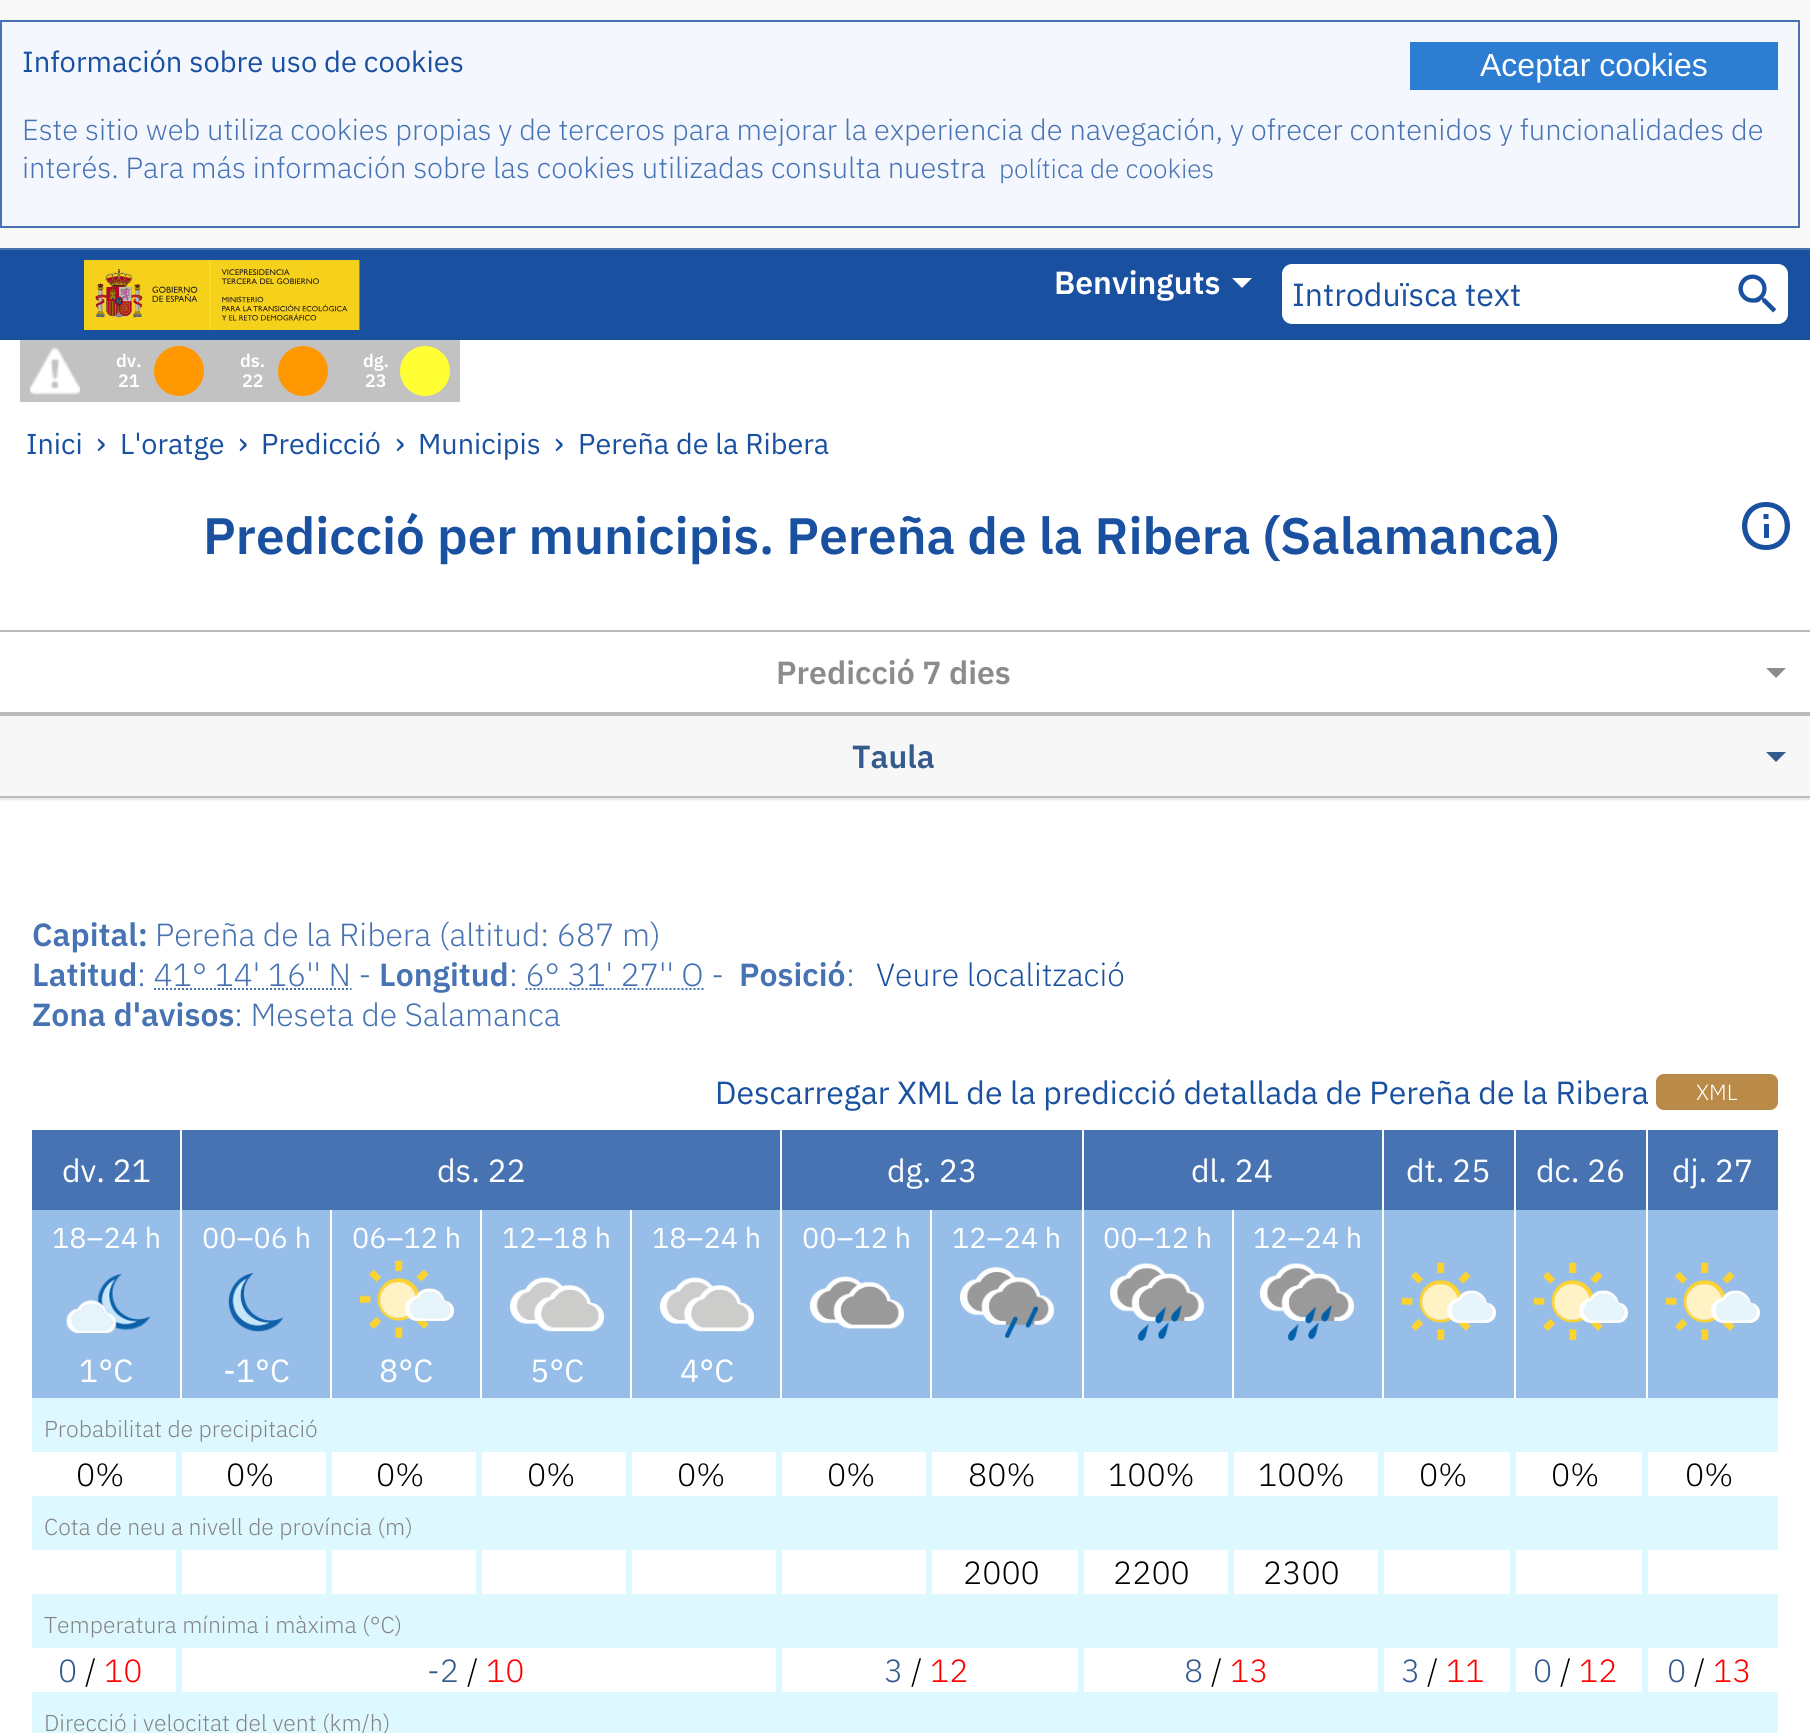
import math
import cairo

surface = cairo.ImageSurface(cairo.Format.RGB24, 1810, 1733)
ctx = cairo.Context(surface)
options = cairo.FontOptions()
options.set_hint_metrics(cairo.HintMetrics.OFF)
options.set_hint_style(cairo.HintStyle.NONE)
ctx.set_font_options(options)
ctx.set_miter_limit(4)


def ink(r, g, b):
    ctx.set_source_rgb(r / 255, g / 255, b / 255)


def write(x, y, s, family, size, color, bold=False, italic=False):
    ctx.select_font_face(family, cairo.FontSlant.ITALIC if italic else cairo.FontSlant.NORMAL, cairo.FontWeight.BOLD if bold else cairo.FontWeight.NORMAL)
    ctx.set_font_size(size)
    ink(*color)
    ctx.move_to(x, y)
    ctx.show_text(s)


def block(x, y, w, h, *color):
    ink(*color)
    ctx.rectangle(x, y, w, h)
    ctx.fill()


def round_path(x, y, w, h, r):
    ctx.new_sub_path()
    for i, (u, v) in enumerate([(x + w - r, y + h - r), (x + r, y + h - r), (x + r, y + r), (x + w - r, y + r)]):
        ctx.arc(u, v, r, i * math.pi / 2, (i + 1) * math.pi / 2)
    ctx.close_path()


def blur_box(x, y, w, h, r, blur, alpha):
    ctx.push_group_with_content(cairo.Content.ALPHA)
    ctx.set_operator(cairo.Operator.SOURCE)
    for i in range(15, -16, -2):
        e = blur * i / 6
        if min(w, h) + 2 * e > 0:
            ctx.set_source_rgba(0, 0, 0, alpha * math.erfc((i - 1) / 8.5) / 2)
            round_path(x - e, y - e, w + 2 * e, h + 2 * e, max(0, min(r + e + blur * .6, min(w, h) / 2 + e)))
            ctx.fill()
    ctx.mask(ctx.pop_group())


def paste(path, x, y, w, h):
    ctx.save()
    ctx.set_source_surface(cairo.ImageSurface.create_from_png(path), x, y)
    ctx.rectangle(x, y, w, h)
    ctx.fill()
    ctx.restore()


s1 = dict(family="IBM Plex Sans", size=29.12, color=(25, 80, 160))
s2 = dict(family="Liberation Sans", size=32, color=(255, 255, 255))
s3 = dict(family="IBM Plex Sans Light", size=29.12, color=(71, 115, 179))
s4 = dict(family="IBM Plex Sans Light", size=26.25, color=(71, 115, 179))
s5 = dict(family="IBM Plex Sans SemiBold", size=32, color=(255, 255, 255))
s6 = dict(family="IBM Plex Sans", size=32, color=(25, 80, 160))
s7 = dict(family="IBM Plex Sans SemiBold", size=18, color=(255, 255, 255))
s8 = dict(family="IBM Plex Sans", size=28.75, color=(25, 80, 160))
s9 = dict(family="IBM Plex Sans SemiBold", size=51.2, color=(25, 80, 160))
s10 = dict(family="IBM Plex Sans SemiBold", size=32, color=(140, 140, 140))
s11 = dict(family="IBM Plex Sans SemiBold", size=32, color=(52, 90, 142))
s12 = dict(family="IBM Plex Sans SemiBold", size=32, color=(71, 115, 179))
s13 = dict(family="IBM Plex Sans Light", size=32, color=(71, 115, 179))
s14 = dict(family="IBM Plex Sans Light", size=32, color=(25, 80, 160))
s15 = dict(family="IBM Plex Sans Light", size=22, color=(255, 255, 255))
s16 = dict(family="IBM Plex Sans", size=32, color=(255, 255, 255))
s17 = dict(family="IBM Plex Sans", size=28.75, color=(255, 255, 255))
s18 = dict(family="IBM Plex Sans Light", size=23, color=(131, 131, 131))
s19 = dict(family="IBM Plex Sans Light", size=32, color=(0, 0, 0))
s20 = dict(family="IBM Plex Sans Light", size=32, color=(52, 90, 142))
s21 = dict(family="IBM Plex Sans Light", size=32, color=(255, 0, 0))

ink(255, 255, 255)
ctx.paint()
block(0, 0, 1810, 248, 248, 248, 248)
block(0, 248, 1810, 2, 71, 115, 179)
ink(244, 248, 254)
ctx.rectangle(1, 21, 1798, 206)
ctx.fill_preserve()
ink(71, 115, 179)
ctx.stroke()
write(22, 72, "Información sobre uso de cookies", **s1)
block(1410, 42, 368, 48, 45, 125, 210)
write(1480, 76, "Aceptar cookies", **s2)
write(22, 140, "Este sitio web utiliza cookies propias y de terceros para mejorar la experiencia de navegación, y ofrecer contenidos y funcionalidades de", **s3)
write(22, 178, "interés. Para más información sobre las cookies utilizadas consulta nuestra", **s3)
write(999, 178, "política de cookies", **s4)
block(0, 250, 1810, 90, 25, 80, 160)
block(84, 260, 278, 70, 29, 82, 160)
paste("pic1.png", 84, 260, 276, 70)
write(1054, 294, "Benvinguts", **s5)
ctx.new_path()
ctx.move_to(1232, 278)
ctx.line_to(1252, 278)
ctx.line_to(1242, 288)
ctx.close_path()
ctx.fill()
round_path(1281, 263, 508, 62, 11)
ctx.fill_preserve()
ink(25, 80, 160)
ctx.stroke()
write(1292, 306, "Introduïsca text", **s6)
paste("pic2.png", 1738, 274, 39, 39)
block(20, 340, 440, 62, 194, 194, 194)
paste("pic3.png", 30, 347, 50, 48)
write(116, 367, "dv.", **s7)
write(118, 387, "21", **s7)
ink(255, 152, 0)
ctx.new_path()
ctx.arc(179, 371, 25, 0, 2 * math.pi)
ctx.fill()
write(240, 367, "ds.", **s7)
write(242, 387, "22", **s7)
ink(255, 152, 0)
ctx.new_path()
ctx.arc(303, 371, 25, 0, 2 * math.pi)
ctx.fill()
write(363, 367, "dg.", **s7)
write(365, 387, "23", **s7)
ink(255, 255, 51)
ctx.new_path()
ctx.arc(425, 371, 25, 0, 2 * math.pi)
ctx.fill()
write(26, 454, "Inici", **s8)
write(96, 454, "›", **s6)
write(120, 454, "L'oratge", **s8)
write(238, 454, "›", **s6)
write(261, 454, "Predicció", **s8)
write(395, 454, "›", **s6)
write(418, 454, "Municipis", **s8)
write(554, 454, "›", **s6)
write(578, 454, "Pereña de la Ribera", **s8)
write(203, 554, "Predicció per municipis. Pereña de la Ribera (Salamanca)", **s9)
ctx.set_fill_rule(cairo.FillRule.EVEN_ODD)
ctx.new_path()
ctx.move_to(1766, 545)
ctx.curve_to(1791, 545, 1791, 507, 1766, 507)
ctx.curve_to(1741, 507, 1741, 545, 1766, 545)
ctx.close_path()
ctx.move_to(1766, 550)
ctx.curve_to(1798, 550, 1798, 502, 1766, 502)
ctx.curve_to(1734, 502, 1734, 550, 1766, 550)
ctx.close_path()
ctx.fill()
ctx.new_path()
ctx.move_to(1763.5, 519)
ctx.line_to(1763.5, 514)
ctx.line_to(1768.5, 514)
ctx.line_to(1768.5, 519)
ctx.close_path()
ctx.fill()
block(1764, 524, 5, 14, 25, 80, 160)
block(0, 630, 1810, 2, 187, 187, 187)
block(0, 712, 1810, 2, 187, 187, 187)
write(776, 684, "Predicció 7 dies", **s10)
ctx.set_fill_rule(cairo.FillRule.WINDING)
ctx.new_path()
ctx.move_to(1766, 668)
ctx.line_to(1786, 668)
ctx.line_to(1776, 678)
ctx.close_path()
ctx.fill()
ink(0, 0, 0)
blur_box(0, 716, 1810, 84, 0, 1, 0.1)
block(0, 716, 1810, 80, 247, 247, 247)
block(0, 714, 1810, 2, 187, 187, 187)
block(0, 796, 1810, 2, 187, 187, 187)
write(852, 768, "Taula", **s11)
ctx.new_path()
ctx.move_to(1766, 752)
ctx.line_to(1786, 752)
ctx.line_to(1776, 762)
ctx.close_path()
ctx.fill()
write(32, 946, "Capital:", **s12)
write(155, 946, "Pereña de la Ribera (altitud: 687 m)", **s13)
write(32, 986, "Latitud", **s12)
write(137, 986, ": 41° 14' 16'' N -", **s13)
ctx.new_path()
ctx.move_to(154, 989)
ctx.line_to(351.5, 989)
ctx.set_dash([2, 2])
ctx.stroke()
write(379, 986, "Longitud", **s12)
write(509, 986, ": 6° 31' 27'' O -", **s13)
ctx.new_path()
ctx.move_to(525.5, 989)
ctx.line_to(703.5, 989)
ctx.stroke()
write(739, 986, "Posició", **s12)
write(846, 986, ":", **s13)
write(876, 986, "Veure localització", **s14)
write(32, 1026, "Zona d'avisos", **s12)
write(234, 1026, ": Meseta de Salamanca", **s13)
write(715, 1104, "Descarregar XML de la predicció detallada de Pereña de la Ribera", **s6)
ink(185, 138, 72)
round_path(1656, 1074, 122, 36, 8)
ctx.fill()
write(1696, 1100, "XML", **s15)
block(32, 1130, 148, 80, 71, 115, 179)
write(62, 1182, "dv. 21", **s16)
block(182, 1130, 598, 80, 71, 115, 179)
write(437, 1182, "ds. 22", **s16)
block(782, 1130, 300, 80, 71, 115, 179)
write(887, 1182, "dg. 23", **s16)
block(1084, 1130, 298, 80, 71, 115, 179)
write(1191, 1182, "dl. 24", **s16)
block(1384, 1130, 130, 80, 71, 115, 179)
write(1406, 1182, "dt. 25", **s16)
block(1516, 1130, 130, 80, 71, 115, 179)
write(1536, 1182, "dc. 26", **s16)
block(1648, 1130, 130, 80, 71, 115, 179)
write(1672, 1182, "dj. 27", **s16)
block(32, 1210, 148, 188, 150, 190, 232)
write(52, 1248, "18–24 h", **s17)
paste("pic4.png", 66, 1273, 85, 61)
write(79, 1382, "1°C", **s16)
block(182, 1210, 148, 188, 150, 190, 232)
write(202, 1248, "00–06 h", **s17)
paste("pic5.png", 228, 1273, 56, 59)
write(223, 1382, "-1°C", **s16)
block(332, 1210, 148, 188, 150, 190, 232)
write(352, 1248, "06–12 h", **s17)
paste("pic6.png", 360, 1260, 94, 78)
write(379, 1382, "8°C", **s16)
block(482, 1210, 148, 188, 150, 190, 232)
write(502, 1248, "12–18 h", **s17)
paste("pic7.png", 510, 1277, 94, 55)
write(530, 1382, "5°C", **s16)
block(632, 1210, 148, 188, 150, 190, 232)
write(652, 1248, "18–24 h", **s17)
paste("pic7.png", 660, 1277, 94, 55)
write(680, 1382, "4°C", **s16)
block(782, 1210, 148, 188, 150, 190, 232)
write(802, 1248, "00–12 h", **s17)
paste("pic8.png", 810, 1276, 94, 53)
block(932, 1210, 150, 188, 150, 190, 232)
write(952, 1248, "12–24 h", **s17)
paste("pic9.png", 960, 1267, 94, 71)
block(1084, 1210, 148, 188, 150, 190, 232)
write(1103, 1248, "00–12 h", **s17)
paste("pic10.png", 1110, 1263, 94, 78)
block(1234, 1210, 148, 188, 150, 190, 232)
write(1253, 1248, "12–24 h", **s17)
paste("pic10.png", 1260, 1263, 94, 78)
block(1384, 1210, 130, 188, 150, 190, 232)
paste("pic11.png", 1402, 1262, 94, 78)
block(1516, 1210, 130, 188, 150, 190, 232)
paste("pic11.png", 1534, 1262, 94, 78)
block(1648, 1210, 130, 188, 150, 190, 232)
paste("pic6.png", 1666, 1262, 94, 78)
block(32, 1398, 1746, 54, 222, 248, 255)
write(44, 1437, "Probabilitat de precipitació", **s18)
block(176, 1452, 6, 44, 222, 248, 255)
write(76, 1486, "0%", **s19)
block(326, 1452, 6, 44, 222, 248, 255)
write(226, 1486, "0%", **s19)
block(476, 1452, 6, 44, 222, 248, 255)
write(376, 1486, "0%", **s19)
block(626, 1452, 6, 44, 222, 248, 255)
write(527, 1486, "0%", **s19)
block(776, 1452, 6, 44, 222, 248, 255)
write(677, 1486, "0%", **s19)
block(926, 1452, 6, 44, 222, 248, 255)
write(827, 1486, "0%", **s19)
block(1078, 1452, 6, 44, 222, 248, 255)
write(968, 1486, "80%", **s19)
block(1228, 1452, 6, 44, 222, 248, 255)
write(1108, 1486, "100%", **s19)
block(1378, 1452, 6, 44, 222, 248, 255)
write(1258, 1486, "100%", **s19)
block(1510, 1452, 6, 44, 222, 248, 255)
write(1419, 1486, "0%", **s19)
block(1642, 1452, 6, 44, 222, 248, 255)
write(1551, 1486, "0%", **s19)
write(1685, 1486, "0%", **s19)
block(32, 1496, 1746, 54, 222, 248, 255)
write(44, 1535, "Cota de neu a nivell de província (m)", **s18)
block(176, 1550, 6, 44, 222, 248, 255)
block(326, 1550, 6, 44, 222, 248, 255)
block(476, 1550, 6, 44, 222, 248, 255)
block(626, 1550, 6, 44, 222, 248, 255)
block(776, 1550, 6, 44, 222, 248, 255)
block(926, 1550, 6, 44, 222, 248, 255)
block(1078, 1550, 6, 44, 222, 248, 255)
write(963, 1584, "2000", **s19)
block(1228, 1550, 6, 44, 222, 248, 255)
write(1113, 1584, "2200", **s19)
block(1378, 1550, 6, 44, 222, 248, 255)
write(1263, 1584, "2300", **s19)
block(1510, 1550, 6, 44, 222, 248, 255)
block(1642, 1550, 6, 44, 222, 248, 255)
block(32, 1594, 1746, 54, 222, 248, 255)
write(44, 1633, "Temperatura mínima i màxima (°C)", **s18)
block(176, 1648, 6, 44, 222, 248, 255)
write(58, 1682, "0", **s20)
write(85, 1682, "/", **s19)
write(104, 1682, "10", **s21)
block(776, 1648, 6, 44, 222, 248, 255)
write(427, 1682, "-2", **s20)
write(467, 1682, "/", **s19)
write(486, 1682, "10", **s21)
block(1078, 1648, 6, 44, 222, 248, 255)
write(884, 1682, "3", **s20)
write(911, 1682, "/", **s19)
write(930, 1682, "12", **s21)
block(1378, 1648, 6, 44, 222, 248, 255)
write(1184, 1682, "8", **s20)
write(1211, 1682, "/", **s19)
write(1230, 1682, "13", **s21)
block(1510, 1648, 6, 44, 222, 248, 255)
write(1401, 1682, "3", **s20)
write(1427, 1682, "/", **s19)
write(1446, 1682, "11", **s21)
block(1642, 1648, 6, 44, 222, 248, 255)
write(1533, 1682, "0", **s20)
write(1560, 1682, "/", **s19)
write(1579, 1682, "12", **s21)
write(1667, 1682, "0", **s20)
write(1694, 1682, "/", **s19)
write(1713, 1682, "13", **s21)
block(32, 1692, 1746, 41, 222, 248, 255)
write(44, 1731, "Direcció i velocitat del vent (km/h)", **s18)
surface.write_to_png("screenshot.png")
